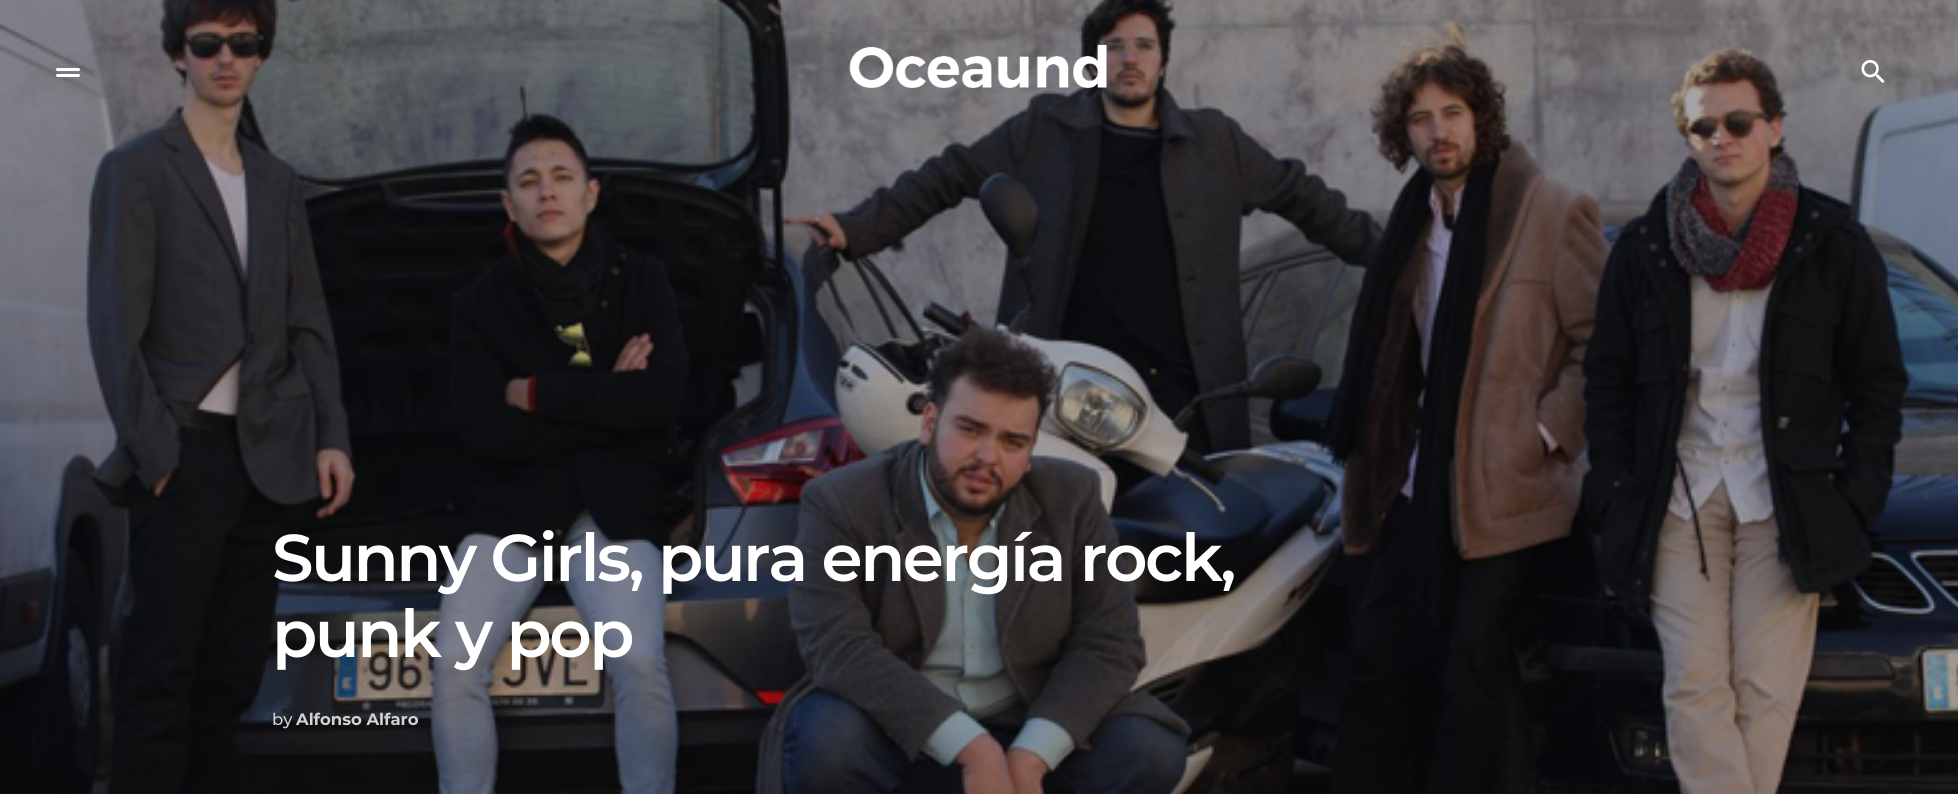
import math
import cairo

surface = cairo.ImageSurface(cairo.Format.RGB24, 1958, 794)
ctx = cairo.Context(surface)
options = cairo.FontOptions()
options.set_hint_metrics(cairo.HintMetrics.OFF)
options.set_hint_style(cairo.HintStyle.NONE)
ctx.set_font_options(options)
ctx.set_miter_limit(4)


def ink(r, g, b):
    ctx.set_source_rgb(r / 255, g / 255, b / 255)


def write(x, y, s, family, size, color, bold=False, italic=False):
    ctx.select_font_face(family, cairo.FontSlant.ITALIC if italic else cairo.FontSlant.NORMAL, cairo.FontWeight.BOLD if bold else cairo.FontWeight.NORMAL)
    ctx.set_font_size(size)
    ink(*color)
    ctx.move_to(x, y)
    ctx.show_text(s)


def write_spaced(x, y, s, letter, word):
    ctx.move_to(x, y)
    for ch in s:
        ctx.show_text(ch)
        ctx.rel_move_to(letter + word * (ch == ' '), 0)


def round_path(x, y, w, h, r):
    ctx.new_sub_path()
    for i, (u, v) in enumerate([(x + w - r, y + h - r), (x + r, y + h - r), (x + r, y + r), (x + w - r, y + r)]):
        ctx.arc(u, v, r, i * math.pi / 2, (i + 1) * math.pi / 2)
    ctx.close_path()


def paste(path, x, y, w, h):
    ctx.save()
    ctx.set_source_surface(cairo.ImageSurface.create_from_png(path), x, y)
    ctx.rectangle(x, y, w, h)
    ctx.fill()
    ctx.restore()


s1 = dict(family="Montserrat Medium", size=16.5, color=(209, 210, 211))
s2 = dict(family="Montserrat", size=16.5, color=(209, 210, 211), bold=True)

ink(255, 255, 255)
ctx.paint()
paste("pic3.png", 0, 0, 1958, 794)
ink(255, 255, 255)
round_path(56, 68, 24, 3, 1.5)
ctx.fill()
round_path(56, 74, 24, 3, 1.5)
ctx.fill()
paste("pic1.png", 849, 44, 258, 44)
paste("pic2.png", 1861, 60, 24, 23)
ctx.select_font_face("Montserrat SemiBold")
ctx.set_font_size(66)
write_spaced(272, 581, "Sunny Girls, pura energía rock,", -2.5, 0)
write_spaced(272, 657, "punk y pop", -2.5, 0)
write(272, 725, "by", **s1)
write(296, 725, "Alfonso Alfaro", **s2)
surface.write_to_png("screenshot.png")
